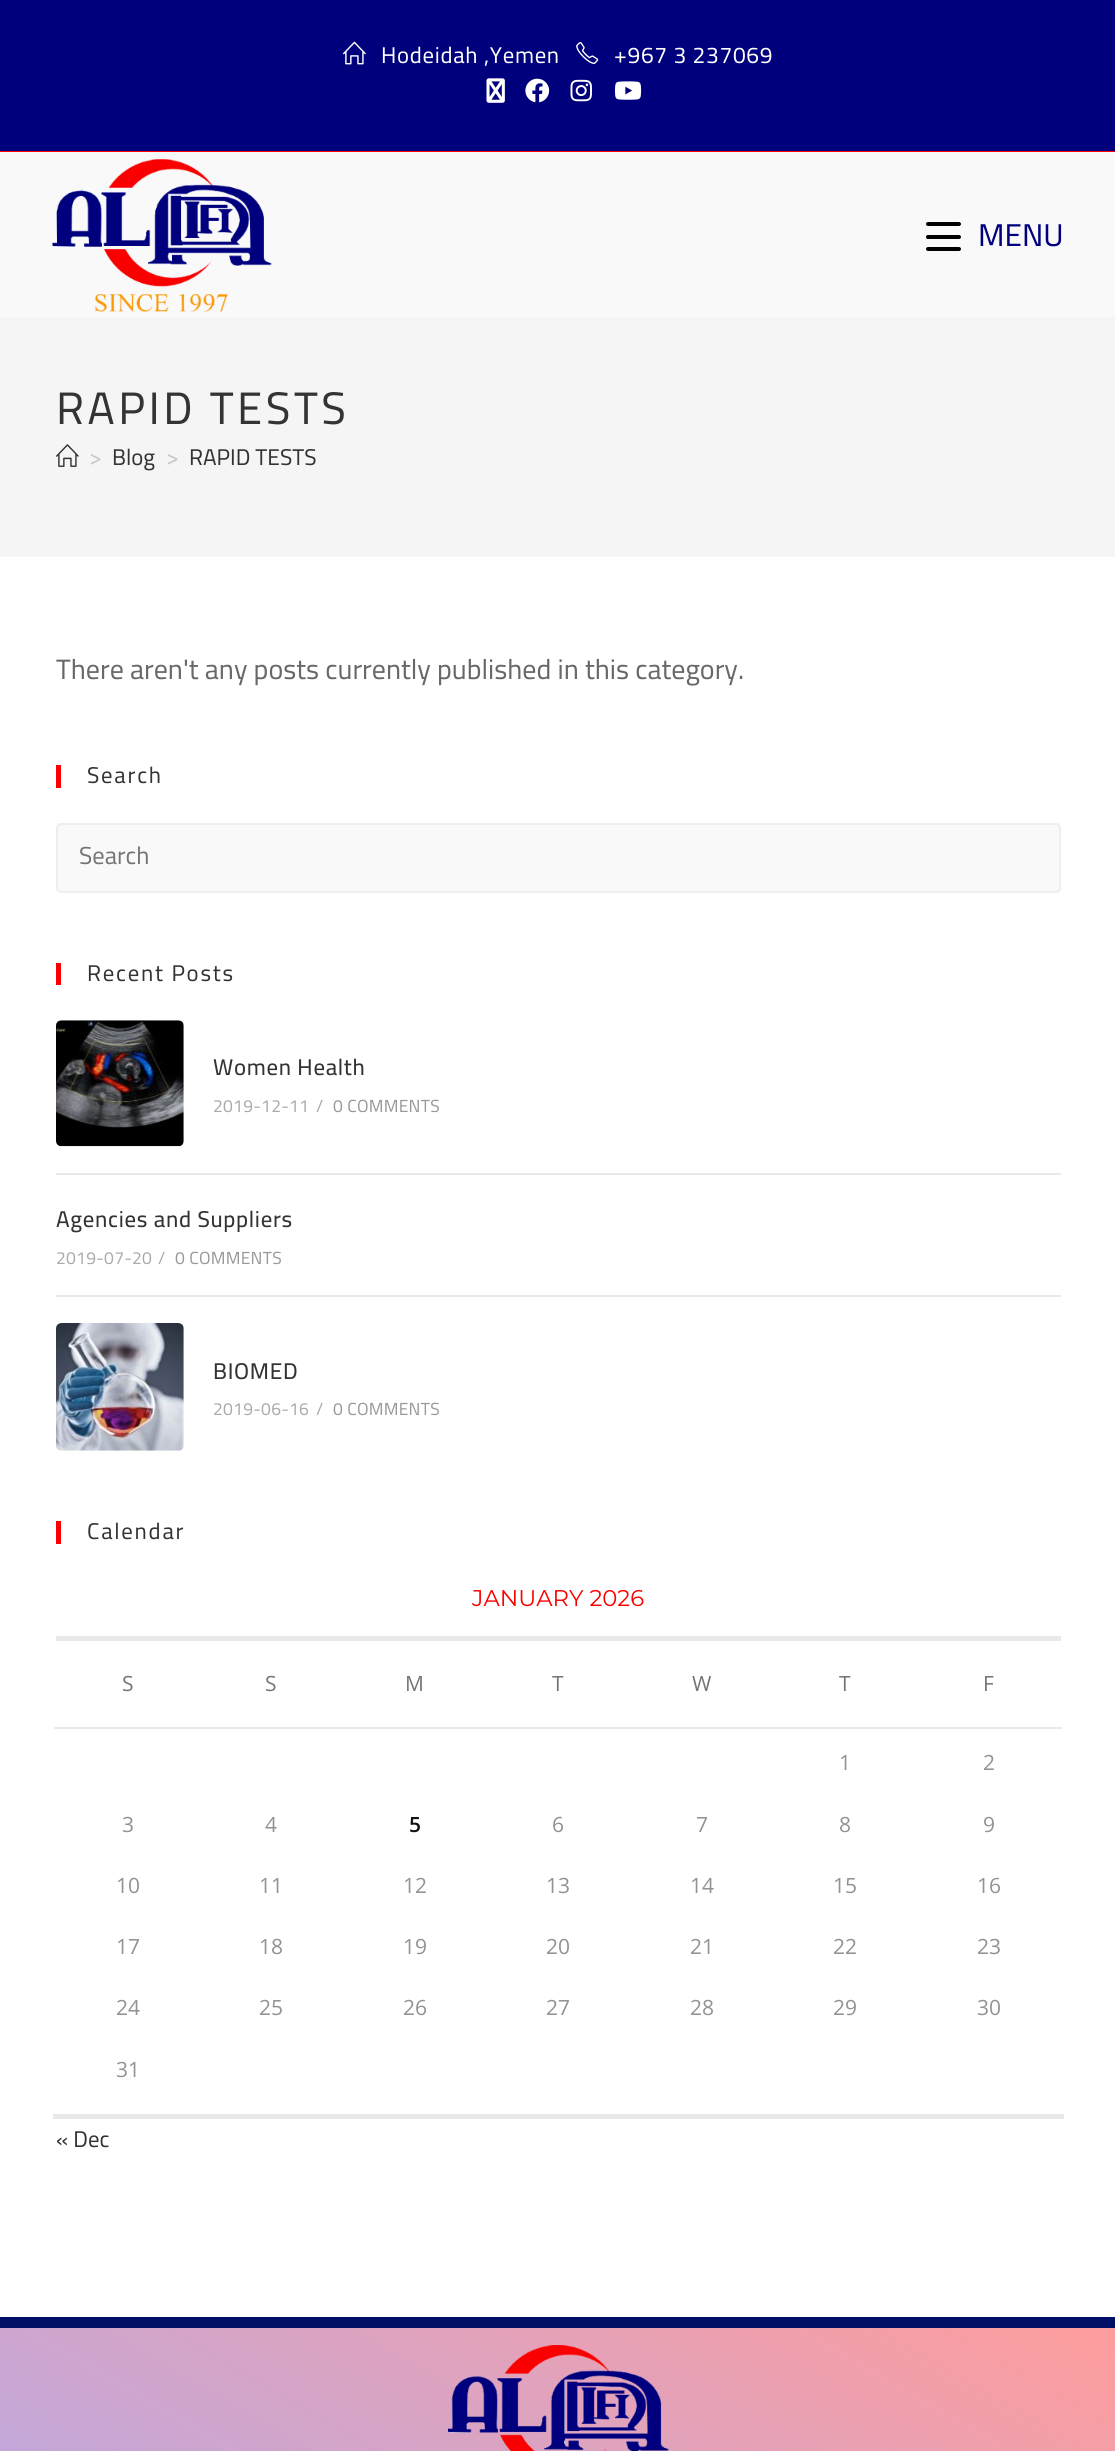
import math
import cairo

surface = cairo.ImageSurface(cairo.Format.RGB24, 1115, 2451)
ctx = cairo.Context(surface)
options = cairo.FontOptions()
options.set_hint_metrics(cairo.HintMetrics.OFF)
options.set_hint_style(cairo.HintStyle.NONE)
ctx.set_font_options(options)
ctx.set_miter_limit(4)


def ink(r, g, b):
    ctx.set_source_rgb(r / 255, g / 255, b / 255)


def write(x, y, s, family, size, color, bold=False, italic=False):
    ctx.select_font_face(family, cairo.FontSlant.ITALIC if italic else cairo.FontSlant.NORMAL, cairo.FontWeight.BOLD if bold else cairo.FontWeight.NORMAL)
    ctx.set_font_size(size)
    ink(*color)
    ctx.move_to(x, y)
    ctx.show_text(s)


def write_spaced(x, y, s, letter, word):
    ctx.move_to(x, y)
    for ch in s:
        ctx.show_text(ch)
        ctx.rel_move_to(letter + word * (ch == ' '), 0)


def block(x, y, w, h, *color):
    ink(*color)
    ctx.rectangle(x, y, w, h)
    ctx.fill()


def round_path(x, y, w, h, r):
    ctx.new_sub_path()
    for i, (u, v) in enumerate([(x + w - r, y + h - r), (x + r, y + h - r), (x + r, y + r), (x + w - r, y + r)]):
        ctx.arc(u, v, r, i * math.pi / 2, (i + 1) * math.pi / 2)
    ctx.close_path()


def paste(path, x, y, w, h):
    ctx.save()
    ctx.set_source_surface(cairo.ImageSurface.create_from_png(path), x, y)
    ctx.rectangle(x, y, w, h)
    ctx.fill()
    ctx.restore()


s1 = dict(family="Cairo", size=31.5, color=(0, 0, 125))
s2 = dict(family="Cairo", size=22.75, color=(198, 198, 198))
s3 = dict(family="Cairo", size=22.75, color=(51, 51, 51))
s4 = dict(family="Cairo", size=28, color=(104, 104, 104))
s5 = dict(family="Cairo", size=24.5, color=(117, 117, 117))
s6 = dict(family="Montserrat", size=22.75, color=(250, 0, 0))
s7 = dict(family="Open Sans", size=21, color=(117, 117, 117))
s8 = dict(family="Open Sans", size=21, color=(146, 146, 146))
s9 = dict(family="Open Sans SemiBold", size=21, color=(17, 17, 17))

ink(255, 255, 255)
ctx.paint()
block(0, 0, 1115, 151, 0, 0, 125)
block(0, 151, 1115, 1, 250, 0, 0)
paste("pic1.png", 343, 41, 23, 24)
ctx.select_font_face("Cairo")
ctx.set_font_size(22.75)
ink(255, 255, 255)
write_spaced(381, 63, "Hodeidah ,Yemen", 0.7, 0)
paste("pic2.png", 576, 42, 23, 22)
write_spaced(614, 63, "+967 3 237069", 0.7, 0)
paste("pic3.png", 486, 78, 19, 25)
paste("pic4.png", 525, 78, 25, 25)
paste("pic5.png", 570, 79, 22, 23)
paste("pic6.png", 614, 81, 28, 19)
block(0, 152, 1115, 165, 249, 249, 249)
paste("pic7.png", 52, 159, 220, 153)
ink(0, 0, 0)
round_path(926, 235, 35, 4, 2)
ctx.fill()
round_path(926, 222, 35, 4, 2)
ctx.fill()
round_path(926, 247, 35, 4, 2)
ctx.fill()
write(978, 246, "MENU", **s1)
block(0, 317, 1115, 240, 245, 245, 245)
ctx.set_font_size(45.5)
ink(51, 51, 51)
write_spaced(56, 424, "RAPID TESTS", 3.5, 0)
paste("pic8.png", 56, 444, 23, 23)
write(89, 465, ">", **s2)
write(112, 465, "Blog", **s3)
write(166, 465, ">", **s2)
write(189, 465, "RAPID TESTS", **s3)
write(56, 679, "There aren't any posts currently published in this category.", **s4)
block(56, 765, 5, 23, 250, 0, 0)
ctx.set_font_size(22.75)
ink(51, 51, 51)
write_spaced(87, 783, "Search", 1.75, 0)
ink(249, 249, 249)
round_path(57, 824, 1003, 68, 4)
ctx.fill_preserve()
ink(238, 238, 238)
ctx.stroke()
write(79, 864, "Search", **s5)
block(56, 963, 5, 22, 250, 0, 0)
ctx.set_font_size(22.75)
ink(51, 51, 51)
write_spaced(87, 981, "Recent Posts", 1.75, 0)
paste("pic9.png", 56, 1020, 128, 127)
ctx.select_font_face("Cairo Medium")
write_spaced(213, 1075, "Women Health", 0.7, 0)
ctx.select_font_face("Cairo")
ctx.set_font_size(17.5)
ink(170, 170, 170)
write_spaced(213, 1112, "2019-12-11", 0.25, 0)
write_spaced(316, 1112, "/", 0.25, 0)
ink(153, 153, 153)
write_spaced(333, 1112, "0 COMMENTS", 0.25, 0)
block(56, 1173, 1005, 2, 233, 233, 233)
ctx.select_font_face("Cairo Medium")
ctx.set_font_size(22.75)
ink(51, 51, 51)
write_spaced(56, 1227, "Agencies and Suppliers", 0.7, 0)
ctx.select_font_face("Cairo")
ctx.set_font_size(17.5)
ink(170, 170, 170)
write_spaced(56, 1264, "2019-07-20", 0.25, 0)
write_spaced(158, 1264, "/", 0.25, 0)
ink(153, 153, 153)
write_spaced(175, 1264, "0 COMMENTS", 0.25, 0)
block(56, 1295, 1005, 2, 233, 233, 233)
paste("pic10.png", 56, 1323, 128, 128)
ctx.select_font_face("Cairo Medium")
ctx.set_font_size(22.75)
ink(51, 51, 51)
write_spaced(213, 1379, "BIOMED", 0.7, 0)
ctx.select_font_face("Cairo")
ctx.set_font_size(17.5)
ink(170, 170, 170)
write_spaced(213, 1415, "2019-06-16", 0.25, 0)
write_spaced(316, 1415, "/", 0.25, 0)
ink(153, 153, 153)
write_spaced(333, 1415, "0 COMMENTS", 0.25, 0)
block(56, 1521, 5, 23, 250, 0, 0)
ctx.set_font_size(22.75)
ink(51, 51, 51)
write_spaced(87, 1539, "Calendar", 1.75, 0)
block(56, 1636, 1005, 5, 233, 233, 233)
write(472, 1606, "JANUARY 2026", **s6)
write(122, 1691, "S", **s7)
write(265, 1691, "S", **s7)
write(405, 1691, "M", **s7)
write(552, 1691, "T", **s7)
write(692, 1691, "W", **s7)
write(839, 1691, "T", **s7)
block(54, 1727, 1008, 2, 233, 233, 233)
write(983, 1691, "F", **s7)
block(53, 2114, 1011, 5, 233, 233, 233)
write(839, 1770, "1", **s8)
write(983, 1770, "2", **s8)
write(122, 1832, "3", **s8)
write(265, 1832, "4", **s8)
write(409, 1832, "5", **s9)
write(552, 1832, "6", **s8)
write(696, 1832, "7", **s8)
write(839, 1832, "8", **s8)
write(983, 1832, "9", **s8)
write(116, 1893, "10", **s8)
write(259, 1893, "11", **s8)
write(403, 1893, "12", **s8)
write(546, 1893, "13", **s8)
write(690, 1893, "14", **s8)
write(833, 1893, "15", **s8)
write(977, 1893, "16", **s8)
write(116, 1954, "17", **s8)
write(259, 1954, "18", **s8)
write(403, 1954, "19", **s8)
write(546, 1954, "20", **s8)
write(690, 1954, "21", **s8)
write(833, 1954, "22", **s8)
write(977, 1954, "23", **s8)
write(116, 2015, "24", **s8)
write(259, 2015, "25", **s8)
write(403, 2015, "26", **s8)
write(546, 2015, "27", **s8)
write(690, 2015, "28", **s8)
write(833, 2015, "29", **s8)
write(977, 2015, "30", **s8)
write(116, 2077, "31", **s8)
write(56, 2147, "« Dec", **s3)
gradient = cairo.LinearGradient(286, 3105, 830, 2162)
gradient.add_color_stop_rgba(0, 0.616, 0.682, 1, 1)
gradient.add_color_stop_rgba(1, 1, 0.616, 0.616, 1)
ctx.set_source(gradient)
ctx.rectangle(0, 2328, 1115, 123)
ctx.fill()
block(0, 2317, 1115, 11, 0, 14, 101)
paste("pic11.png", 448, 2345, 221, 106)
surface.write_to_png("screenshot.png")
